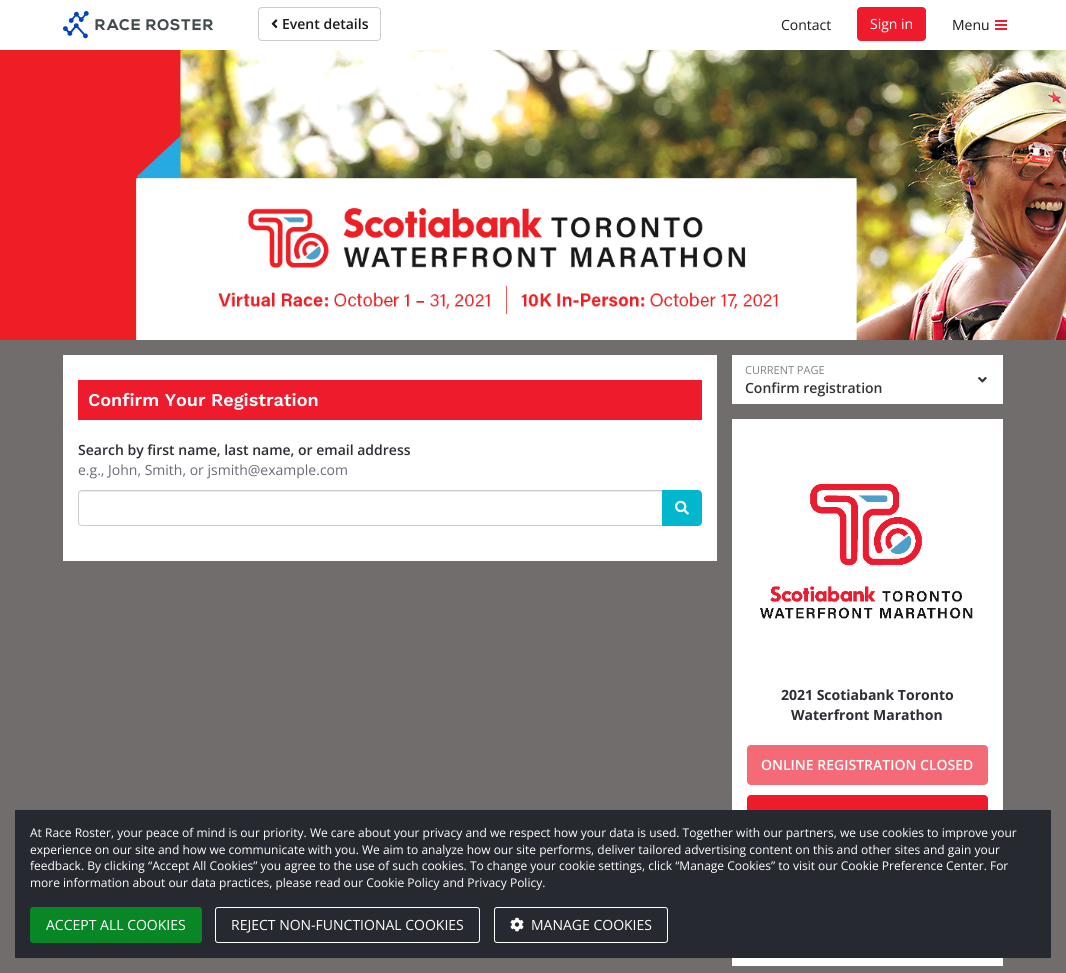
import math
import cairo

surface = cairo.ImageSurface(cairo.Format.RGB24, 1066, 973)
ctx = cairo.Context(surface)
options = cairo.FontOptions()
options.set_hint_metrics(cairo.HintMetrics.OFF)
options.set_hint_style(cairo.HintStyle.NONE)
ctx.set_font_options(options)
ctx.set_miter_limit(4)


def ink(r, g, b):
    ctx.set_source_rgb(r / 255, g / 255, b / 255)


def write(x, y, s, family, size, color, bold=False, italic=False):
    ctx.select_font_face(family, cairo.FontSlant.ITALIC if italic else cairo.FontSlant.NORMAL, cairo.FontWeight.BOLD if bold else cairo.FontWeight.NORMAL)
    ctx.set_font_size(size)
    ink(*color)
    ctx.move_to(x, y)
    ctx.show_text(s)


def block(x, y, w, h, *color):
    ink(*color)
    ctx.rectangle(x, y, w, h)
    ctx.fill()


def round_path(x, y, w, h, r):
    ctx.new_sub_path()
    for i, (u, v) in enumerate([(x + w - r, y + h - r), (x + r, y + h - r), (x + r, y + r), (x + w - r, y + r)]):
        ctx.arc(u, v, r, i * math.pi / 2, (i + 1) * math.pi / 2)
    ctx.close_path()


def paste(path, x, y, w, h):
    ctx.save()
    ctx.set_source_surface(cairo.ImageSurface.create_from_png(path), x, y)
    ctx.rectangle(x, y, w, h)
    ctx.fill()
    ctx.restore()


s1 = dict(family="Open Sans SemiBold", size=14, color=(26, 26, 26))
s2 = dict(family="Open Sans", size=14, color=(26, 26, 26))
s3 = dict(family="Open Sans", size=14, color=(255, 255, 255))
s4 = dict(family="Work Sans SemiBold", size=18, color=(255, 255, 255))
s5 = dict(family="Open Sans SemiBold", size=14, color=(45, 45, 51))
s6 = dict(family="Open Sans", size=14, color=(105, 105, 119))
s7 = dict(family="Open Sans", size=11, color=(128, 128, 128))
s8 = dict(family="Open Sans SemiBold", size=14, color=(51, 51, 51))
s9 = dict(family="Open Sans", size=14, color=(45, 45, 51), bold=True)
s10 = dict(family="Open Sans SemiBold", size=14, color=(255, 255, 255))
s11 = dict(family="Open Sans", size=12, color=(255, 255, 255))

ink(114, 109, 109)
ctx.paint()
block(0, 0, 1066, 50, 255, 255, 255)
paste("pic1.png", 63, 11, 150, 28)
round_path(258.5, 7.5, 122, 33, 3.5)
ink(204, 204, 204)
ctx.set_line_width(1)
ctx.stroke()
paste("pic2.png", 271, 19, 7, 10)
write(282, 29, "Event details", **s1)
write(781, 30, "Contact", **s2)
ink(238, 27, 45)
round_path(857, 7, 69, 34, 4)
ctx.fill()
write(870, 29, "Sign in", **s3)
write(952, 30, "Menu", **s2)
block(995, 20, 12, 2, 238, 27, 45)
block(995, 24, 12, 2, 238, 27, 45)
block(995, 28, 12, 2, 238, 27, 45)
paste("pic3.png", 0, 50, 1066, 290)
block(63, 355, 654, 206, 255, 255, 255)
block(78, 380, 624, 40, 238, 27, 45)
write(88, 406, "Confirm Your Registration", **s4)
write(78, 455, "Search by first name, last name, or email address", **s5)
write(78, 475, "e.g., John, Smith, or jsmith@example.com", **s6)
ink(236, 236, 236)
ctx.new_path()
ctx.move_to(82, 492)
ctx.line_to(662, 492)
ctx.line_to(662, 491)
ctx.line_to(82, 491)
ctx.curve_to(80, 491, 79, 492, 79, 494)
ctx.line_to(79, 495)
ctx.curve_to(79, 493, 80, 492, 82, 492)
ctx.close_path()
ctx.fill()
ctx.new_path()
ctx.move_to(82, 490.5)
ctx.line_to(662.5, 490.5)
ctx.line_to(662.5, 525.5)
ctx.line_to(82, 525.5)
ctx.curve_to(80, 525.5, 78.5, 524, 78.5, 522)
ctx.line_to(78.5, 494)
ctx.curve_to(78.5, 492, 80, 490.5, 82, 490.5)
ctx.close_path()
ink(204, 204, 204)
ctx.stroke()
ink(0, 183, 205)
ctx.new_path()
ctx.move_to(662, 490)
ctx.line_to(698, 490)
ctx.curve_to(700, 490, 702, 492, 702, 494)
ctx.line_to(702, 522)
ctx.curve_to(702, 524, 700, 526, 698, 526)
ctx.line_to(662, 526)
ctx.close_path()
ctx.fill()
paste("pic4.png", 675, 500, 14, 15)
block(732, 355, 271, 49, 255, 255, 255)
write(745, 374, "CURRENT PAGE", **s7)
paste("pic5.png", 978, 377, 9, 6)
write(745, 393, "Confirm registration", **s8)
block(732, 419, 271, 391, 255, 255, 255)
paste("pic6.png", 760, 483, 213, 136)
write(781, 700, "2021 Scotiabank Toronto", **s9)
write(791, 720, "Waterfront Marathon", **s9)
ink(244, 107, 119)
round_path(747.5, 745.5, 240, 39, 3.5)
ctx.fill_preserve()
ctx.stroke()
write(761, 770, "ONLINE REGISTRATION CLOSED", **s10)
ink(238, 27, 45)
round_path(747, 795, 241, 40, 4)
ctx.fill()
block(732, 958, 271, 8, 255, 255, 255)
block(15, 810, 1036, 148, 39, 41, 48)
write(30, 837, "At Race Roster, your peace of mind is our priority. We care about your privacy and we respect how your data is used. Together with our partners, we use cookies to improve your", **s11)
write(30, 854, "experience on our site and how we communicate with you. We aim to analyze how our site performs, deliver tailored advertising content on this and other sites and gain your", **s11)
write(30, 870, "feedback. By clicking “Accept All Cookies” you agree to the use of such cookies. To change your cookie settings, click “Manage Cookies” to visit our Cookie Preference Center. For", **s11)
write(30, 887, "more information about our data practices, please read our Cookie Policy and Privacy Policy.", **s11)
ink(9, 135, 38)
round_path(30, 907, 172, 36, 3)
ctx.fill()
write(46, 930, "ACCEPT ALL COOKIES", **s3)
round_path(215.5, 907.5, 264, 35, 2.5)
ctx.stroke()
write(231, 930, "REJECT NON-FUNCTIONAL COOKIES", **s3)
round_path(494.5, 907.5, 173, 35, 2.5)
ctx.stroke()
paste("pic7.png", 510, 917, 14, 15)
write(531, 930, "MANAGE COOKIES", **s3)
surface.write_to_png("screenshot.png")
